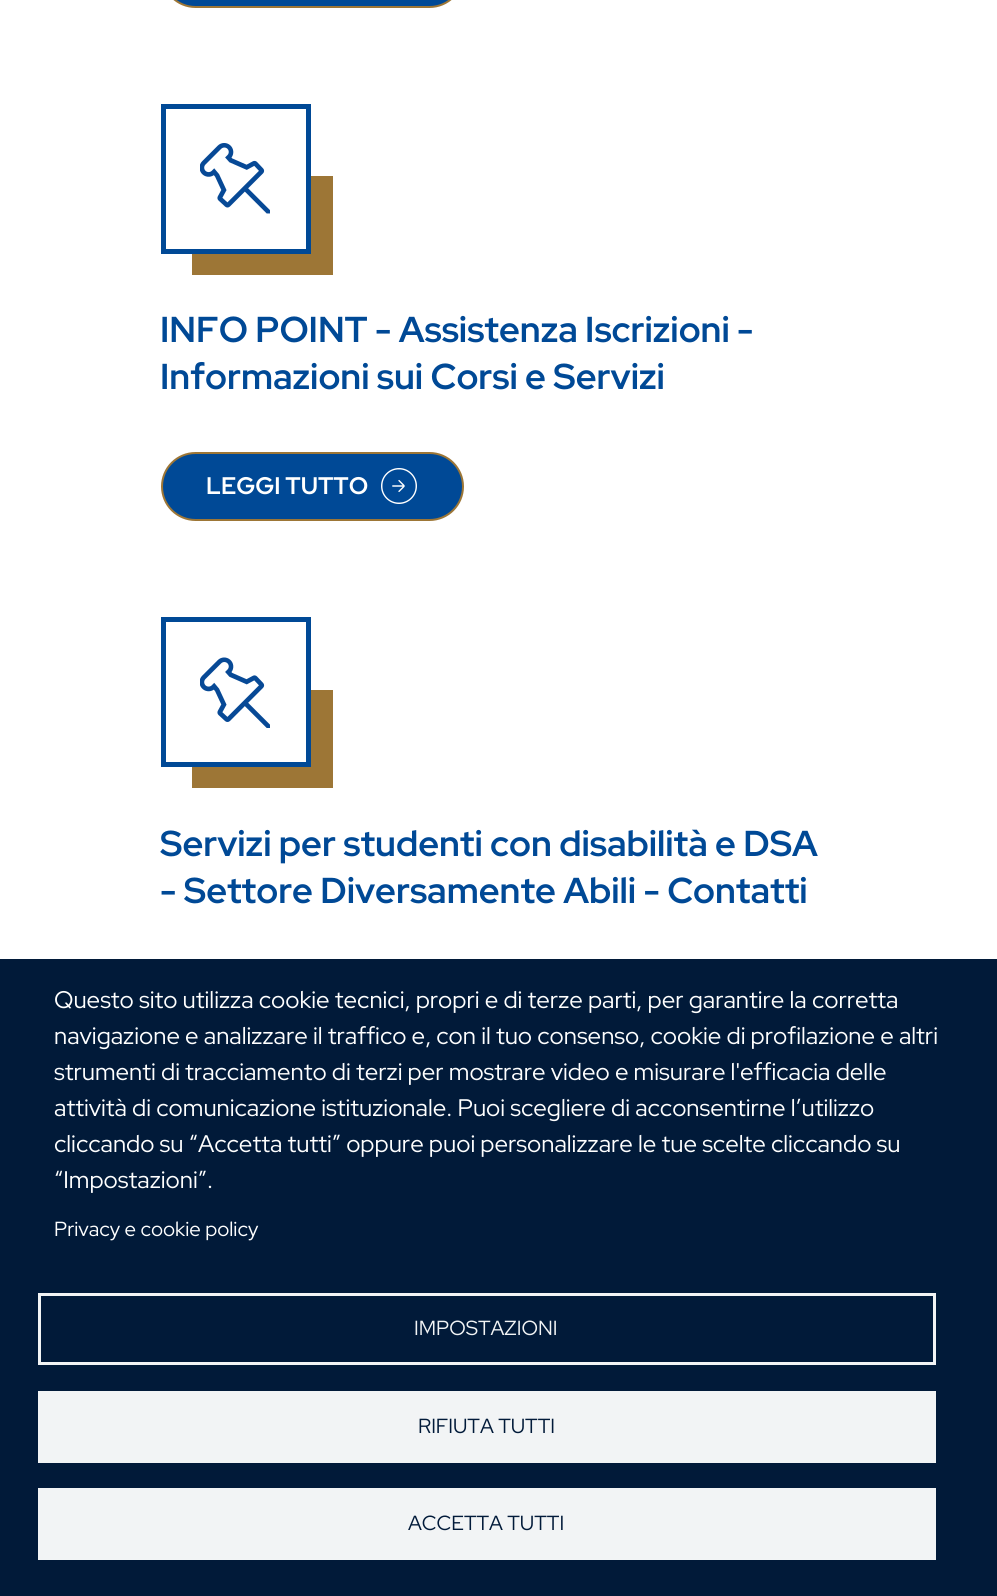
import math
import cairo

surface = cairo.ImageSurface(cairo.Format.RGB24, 997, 1596)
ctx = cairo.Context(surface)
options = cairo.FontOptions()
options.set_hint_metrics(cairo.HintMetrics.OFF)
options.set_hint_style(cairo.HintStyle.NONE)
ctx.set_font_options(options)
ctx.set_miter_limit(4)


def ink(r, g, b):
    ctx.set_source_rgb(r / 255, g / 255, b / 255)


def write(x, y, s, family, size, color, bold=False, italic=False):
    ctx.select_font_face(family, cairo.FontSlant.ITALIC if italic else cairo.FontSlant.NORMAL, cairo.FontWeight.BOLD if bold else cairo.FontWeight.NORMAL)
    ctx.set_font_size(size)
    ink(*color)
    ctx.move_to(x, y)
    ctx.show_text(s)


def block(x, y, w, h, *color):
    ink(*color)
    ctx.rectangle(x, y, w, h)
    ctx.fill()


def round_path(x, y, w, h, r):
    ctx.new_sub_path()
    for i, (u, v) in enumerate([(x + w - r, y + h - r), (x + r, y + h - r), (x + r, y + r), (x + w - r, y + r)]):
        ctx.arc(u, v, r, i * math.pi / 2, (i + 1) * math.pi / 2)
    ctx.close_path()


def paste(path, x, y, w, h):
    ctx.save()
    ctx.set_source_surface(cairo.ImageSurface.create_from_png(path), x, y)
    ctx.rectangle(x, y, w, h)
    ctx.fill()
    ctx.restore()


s1 = dict(family="Red Hat Display", size=36, color=(0, 73, 150), bold=True)
s2 = dict(family="Red Hat Display", size=24, color=(255, 255, 255), bold=True)
s3 = dict(family="Red Hat Display", size=24, color=(255, 255, 255))
s4 = dict(family="Red Hat Display", size=20.4, color=(255, 255, 255))
s5 = dict(family="Red Hat Display", size=20.4, color=(242, 244, 245))
s6 = dict(family="Red Hat Display", size=20.4, color=(1, 26, 57))

ink(255, 255, 255)
ctx.paint()
ink(0, 73, 150)
round_path(162, -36, 301, 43, 33.5)
ctx.fill_preserve()
ink(157, 118, 54)
ctx.stroke()
block(192, 176, 141, 99, 157, 118, 54)
block(192, 176, 114, 73, 255, 255, 255)
ctx.rectangle(163.5, 106.5, 145, 145)
ink(0, 73, 150)
ctx.set_line_width(5)
ctx.stroke()
paste("pic1.png", 200, 143, 70, 71)
write(160, 342, "INFO POINT - Assistenza Iscrizioni -", **s1)
write(160, 389, "Informazioni sui Corsi e Servizi", **s1)
round_path(162, 453, 301, 67, 33.5)
ctx.fill_preserve()
ink(157, 118, 54)
ctx.set_line_width(2)
ctx.stroke()
write(206, 494, "LEGGI TUTTO", **s2)
paste("pic2.png", 381, 468, 36, 36)
block(192, 690, 141, 98, 157, 118, 54)
block(192, 690, 114, 72, 255, 255, 255)
ctx.rectangle(163.5, 619.5, 145, 145)
ink(0, 73, 150)
ctx.set_line_width(5)
ctx.stroke()
paste("pic3.png", 200, 657, 70, 71)
write(160, 856, "Servizi per studenti con disabilità e DSA", **s1)
write(160, 903, "- Settore Diversamente Abili - Contatti", **s1)
block(0, 959, 997, 637, 1, 26, 57)
write(54, 1008, "Questo sito utilizza cookie tecnici, propri e di terze parti, per garantire la corretta", **s3)
write(54, 1044, "navigazione e analizzare il traffico e, con il tuo consenso, cookie di profilazione e altri", **s3)
write(54, 1080, "strumenti di tracciamento di terzi per mostrare video e misurare l'efficacia delle", **s3)
write(54, 1116, "attività di comunicazione istituzionale. Puoi scegliere di acconsentirne l’utilizzo", **s3)
write(54, 1152, "cliccando su “Accetta tutti” oppure puoi personalizzare le tue scelte cliccando su", **s3)
write(54, 1188, "“Impostazioni”.", **s3)
write(54, 1236, "Privacy e cookie policy", **s4)
ctx.rectangle(39.5, 1294.5, 895, 69)
ink(242, 244, 245)
ctx.set_line_width(3)
ctx.stroke()
write(414, 1335, "IMPOSTAZIONI", **s5)
block(38, 1391, 898, 72, 242, 244, 245)
write(418, 1433, "RIFIUTA TUTTI", **s6)
block(38, 1488, 898, 72, 242, 244, 245)
write(408, 1530, "ACCETTA TUTTI", **s6)
surface.write_to_png("screenshot.png")
